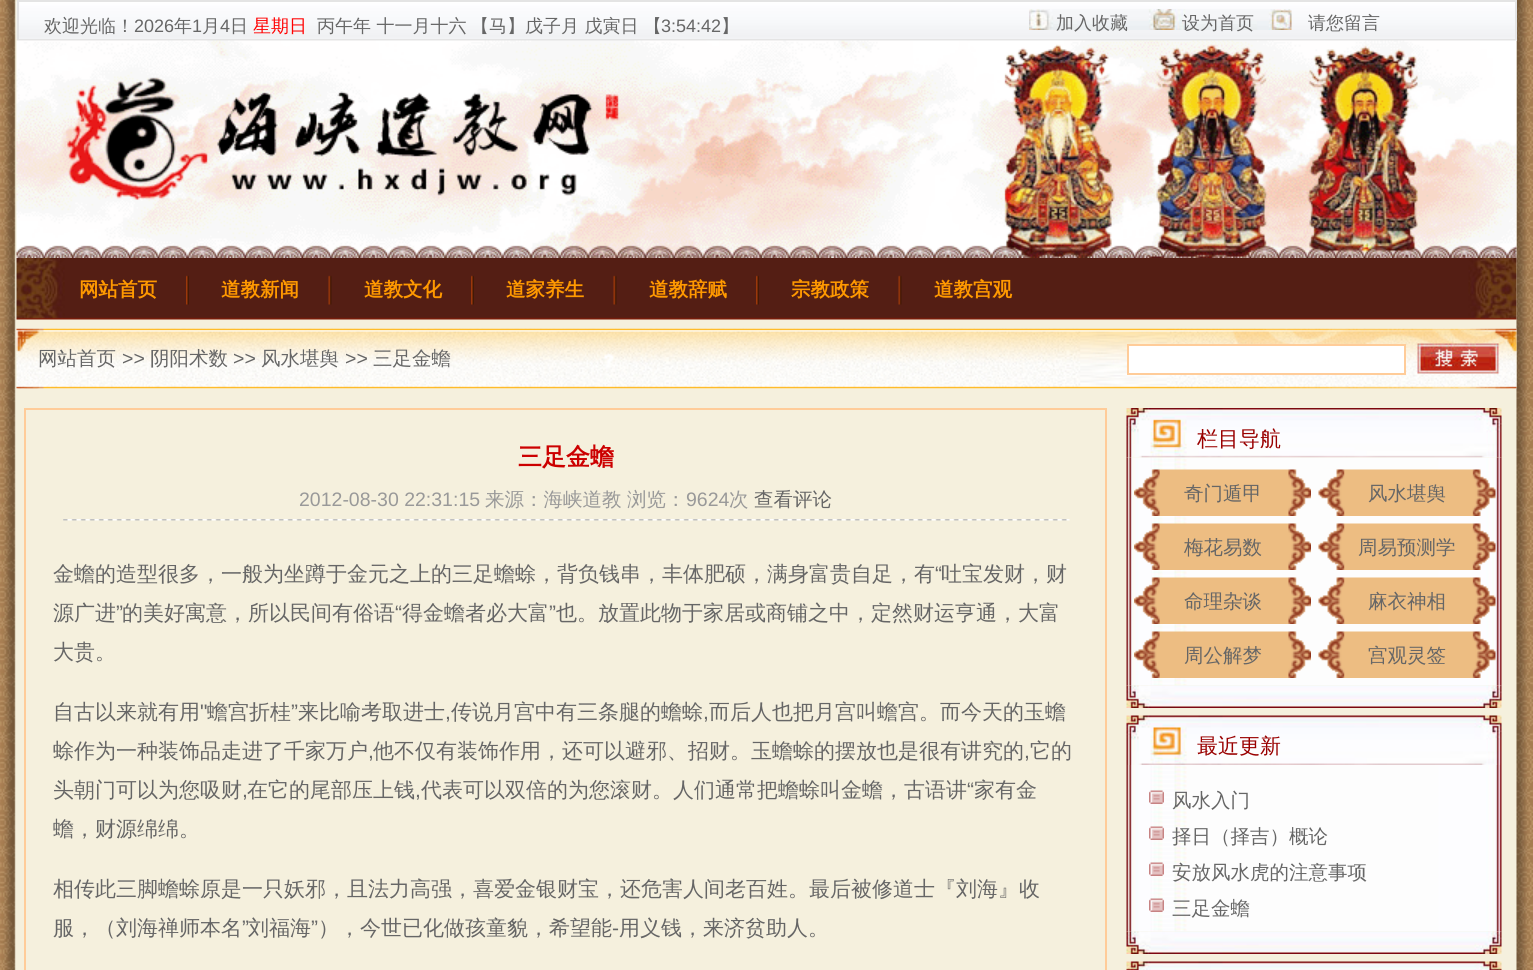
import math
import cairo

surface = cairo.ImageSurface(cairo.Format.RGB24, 1533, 970)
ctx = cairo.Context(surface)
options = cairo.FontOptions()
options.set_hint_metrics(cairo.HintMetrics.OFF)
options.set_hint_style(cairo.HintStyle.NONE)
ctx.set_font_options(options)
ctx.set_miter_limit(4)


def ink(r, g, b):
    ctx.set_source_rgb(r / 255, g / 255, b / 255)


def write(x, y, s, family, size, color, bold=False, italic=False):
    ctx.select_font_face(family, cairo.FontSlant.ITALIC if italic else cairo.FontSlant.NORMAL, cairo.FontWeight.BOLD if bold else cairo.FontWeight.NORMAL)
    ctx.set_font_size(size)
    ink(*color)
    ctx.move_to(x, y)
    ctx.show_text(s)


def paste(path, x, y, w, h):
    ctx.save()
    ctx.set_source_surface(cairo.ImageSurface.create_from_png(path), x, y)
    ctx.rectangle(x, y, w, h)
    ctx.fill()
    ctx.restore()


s1 = dict(family="WenQuanYi Zen Hei Medium", size=18, color=(102, 102, 102))
s2 = dict(family="Liberation Sans", size=18, color=(102, 102, 102))
s3 = dict(family="WenQuanYi Zen Hei Medium", size=18, color=(255, 0, 0))
s4 = dict(family="WenQuanYi Zen Hei", size=19.5, color=(255, 153, 0), bold=True)
s5 = dict(family="WenQuanYi Zen Hei Medium", size=19.5, color=(102, 102, 102))
s6 = dict(family="Liberation Sans", size=19.5, color=(102, 102, 102))
s7 = dict(family="WenQuanYi Zen Hei", size=24, color=(204, 0, 0), bold=True)
s8 = dict(family="Liberation Sans", size=19.5, color=(153, 153, 153))
s9 = dict(family="WenQuanYi Zen Hei Medium", size=19.5, color=(153, 153, 153))
s10 = dict(family="WenQuanYi Zen Hei Medium", size=21, color=(102, 102, 102))
s11 = dict(family="Liberation Sans", size=21, color=(102, 102, 102))
s12 = dict(family="WenQuanYi Zen Hei Medium", size=21, color=(153, 0, 0))

ink(255, 255, 255)
ctx.paint()
paste("pic1.png", 0, 0, 1533, 970)
paste("pic2.png", 16, 1, 1499, 38)
ctx.rectangle(18, 1, 1498, 39)
ink(228, 228, 228)
ctx.stroke()
write(44, 32, "欢迎光临！", **s1)
write(134, 32, "2026", **s2)
write(174, 32, "年", **s1)
write(192, 32, "1", **s2)
write(202, 32, "月", **s1)
write(220, 32, "4", **s2)
write(230, 32, "日", **s1)
write(253, 32, "星期日", **s3)
write(317, 32, "丙午年 十一月十六", **s1)
write(471, 32, "【马】戊子月 戊寅日 【", **s1)
write(661, 32, "3:54:42", **s2)
write(721, 32, "】", **s1)
paste("pic3.png", 1029, 9, 263, 21)
write(1056, 29, "加入收藏", **s1)
write(1182, 29, "设为首页", **s1)
write(1308, 29, "请您留言", **s1)
paste("pic4.png", 16, 40, 1501, 218)
paste("pic5.png", 16, 258, 1501, 62)
paste("pic6.png", 186, 275, 3, 30)
write(79, 296, "网站首页", **s4)
paste("pic7.png", 328, 275, 4, 30)
write(221, 296, "道教新闻", **s4)
paste("pic8.png", 471, 275, 3, 30)
write(364, 296, "道教文化", **s4)
paste("pic7.png", 613, 275, 4, 30)
write(506, 296, "道家养生", **s4)
paste("pic8.png", 756, 275, 3, 30)
write(649, 296, "道教辞赋", **s4)
paste("pic7.png", 898, 275, 4, 30)
write(791, 296, "宗教政策", **s4)
write(934, 296, "道教宫观", **s4)
paste("pic9.png", 16, 328, 1501, 61)
write(38, 365, "网站首页", **s5)
write(122, 365, ">>", **s6)
write(150, 365, "阴阳术数", **s5)
write(233, 365, ">>", **s6)
write(261, 365, "风水堪舆", **s5)
write(345, 365, ">>", **s6)
write(373, 365, "三足金蟾", **s5)
ink(255, 255, 255)
ctx.rectangle(1128, 345, 277, 29)
ctx.fill_preserve()
ink(255, 204, 153)
ctx.stroke()
paste("pic10.png", 1417, 343, 82, 31)
ctx.rectangle(25, 409, 1081, 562)
ctx.stroke()
paste("pic11.png", 63, 519, 1007, 2)
write(518, 465, "三足金蟾", **s7)
write(299, 506, "2012-08-30 22:31:15", **s8)
write(485, 506, "来源：海峡道教", **s9)
write(627, 506, "浏览：", **s9)
write(686, 506, "9624", **s8)
write(729, 506, "次", **s9)
write(754, 506, "查看评论", **s5)
write(53, 581, "金蟾的造型很多，一般为坐蹲于金元之上的三足蟾蜍，背负钱串，丰体肥硕，满身富贵自足，有", **s10)
write(935, 581, "“", **s11)
write(941, 581, "吐宝发财，财", **s10)
write(53, 620, "源广进", **s10)
write(116, 620, "”", **s11)
write(122, 620, "的美好寓意，所以民间有俗语", **s10)
write(395, 620, "“", **s11)
write(402, 620, "得金蟾者必大富", **s10)
write(549, 620, "”", **s11)
write(556, 620, "也。放置此物于家居或商铺之中，定然财运亨通，大富", **s10)
write(53, 659, "大贵。", **s10)
write(53, 719, "自古以来就有用", **s10)
write(200, 719, "\"", **s11)
write(207, 719, "蟾宫折桂", **s10)
write(291, 719, "”", **s11)
write(298, 719, "来比喻考取进士", **s10)
write(451, 719, "传说月宫中有三条腿的蟾蜍", **s10)
write(709, 719, "而后人也把月宫叫蟾宫。而今天的玉蟾", **s10)
write(445, 719, ",", **s11)
write(703, 719, ",", **s11)
write(53, 758, "蜍作为一种装饰品走进了千家万户", **s10)
write(368, 758, ",", **s11)
write(373, 758, "他不仅有装饰作用，还可以避邪、招财。玉蟾蜍的摆放也是很有讲究的", **s10)
write(1024, 758, ",", **s11)
write(1030, 758, "它的", **s10)
write(53, 797, "头朝门可以为您吸财", **s10)
write(247, 797, "在它的尾部压上钱", **s10)
write(421, 797, "代表可以双倍的为您滚财。人们通常把蟾蜍叫金蟾，古语讲", **s10)
write(967, 797, "“", **s11)
write(974, 797, "家有金", **s10)
write(242, 797, ",", **s11)
write(415, 797, ",", **s11)
write(53, 836, "蟾，财源绵绵。", **s10)
write(53, 896, "相传此三脚蟾蜍原是一只妖邪，且法力高强，喜爱金银财宝，还危害人间老百姓。最后被修道士『刘海』收", **s10)
write(53, 935, "服，（刘海禅师本名", **s10)
write(242, 935, "”", **s11)
write(248, 935, "刘福海", **s10)
write(311, 935, "”", **s11)
write(318, 935, "），今世已化做孩童貌，希望能", **s10)
write(619, 935, "用义钱，来济贫助人。", **s10)
write(612, 935, "-", **s11)
paste("pic12.png", 1126, 408, 376, 50)
write(1197, 446, "栏目导航", **s12)
paste("pic13.png", 1126, 457, 376, 229)
paste("pic14.png", 1134, 469, 177, 47)
write(1184, 500, "奇门遁甲", **s5)
paste("pic15.png", 1318, 469, 178, 47)
write(1368, 500, "风水堪舆", **s5)
paste("pic16.png", 1134, 523, 177, 47)
write(1184, 554, "梅花易数", **s5)
paste("pic17.png", 1318, 523, 178, 47)
write(1358, 554, "周易预测学", **s5)
paste("pic18.png", 1134, 577, 177, 47)
write(1184, 608, "命理杂谈", **s5)
paste("pic19.png", 1318, 577, 178, 47)
write(1368, 608, "麻衣神相", **s5)
paste("pic20.png", 1134, 631, 177, 47)
write(1184, 662, "周公解梦", **s5)
paste("pic21.png", 1318, 631, 178, 47)
write(1368, 662, "宫观灵签", **s5)
paste("pic22.png", 1126, 685, 376, 23)
paste("pic23.png", 1126, 715, 376, 50)
write(1197, 753, "最近更新", **s12)
paste("pic24.png", 1126, 765, 376, 167)
paste("pic25.png", 1149, 790, 15, 14)
write(1172, 807, "风水入门", **s5)
paste("pic25.png", 1149, 826, 15, 14)
write(1172, 843, "择日（择吉）概论", **s5)
paste("pic26.png", 1149, 862, 15, 14)
write(1172, 879, "安放风水虎的注意事项", **s5)
paste("pic26.png", 1149, 898, 15, 14)
write(1172, 915, "三足金蟾", **s5)
paste("pic27.png", 1126, 931, 376, 23)
paste("pic28.png", 1126, 961, 376, 9)
surface.write_to_png("screenshot.png")
